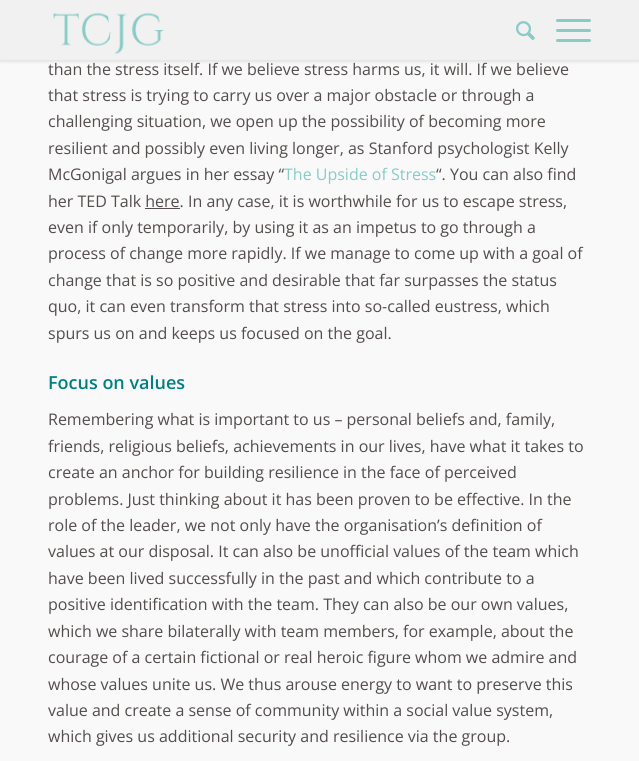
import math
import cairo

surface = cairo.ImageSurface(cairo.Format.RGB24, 639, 761)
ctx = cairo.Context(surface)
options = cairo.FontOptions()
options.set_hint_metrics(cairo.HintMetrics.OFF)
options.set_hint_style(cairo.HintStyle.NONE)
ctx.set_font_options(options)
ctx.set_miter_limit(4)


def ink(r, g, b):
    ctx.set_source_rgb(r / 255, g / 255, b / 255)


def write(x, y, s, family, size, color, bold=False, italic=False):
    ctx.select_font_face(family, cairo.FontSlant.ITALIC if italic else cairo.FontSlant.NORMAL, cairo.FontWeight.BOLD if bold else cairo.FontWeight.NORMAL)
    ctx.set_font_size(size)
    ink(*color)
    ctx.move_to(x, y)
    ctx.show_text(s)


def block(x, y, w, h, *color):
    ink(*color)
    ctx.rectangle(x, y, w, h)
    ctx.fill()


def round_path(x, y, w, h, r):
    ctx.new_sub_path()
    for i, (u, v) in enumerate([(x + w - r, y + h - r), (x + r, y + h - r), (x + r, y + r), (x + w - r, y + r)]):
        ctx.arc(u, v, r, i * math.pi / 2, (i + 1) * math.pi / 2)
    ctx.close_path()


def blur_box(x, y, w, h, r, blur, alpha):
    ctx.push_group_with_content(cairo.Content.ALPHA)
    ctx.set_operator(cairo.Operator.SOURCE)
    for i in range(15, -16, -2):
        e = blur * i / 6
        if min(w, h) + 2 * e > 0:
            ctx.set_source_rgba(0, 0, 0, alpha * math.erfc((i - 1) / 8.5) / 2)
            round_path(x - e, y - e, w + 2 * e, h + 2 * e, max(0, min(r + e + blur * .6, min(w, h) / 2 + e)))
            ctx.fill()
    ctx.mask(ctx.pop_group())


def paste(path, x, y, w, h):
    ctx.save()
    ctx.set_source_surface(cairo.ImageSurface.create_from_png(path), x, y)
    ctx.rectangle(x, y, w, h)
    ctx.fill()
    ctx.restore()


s1 = dict(family="Open Sans", size=16, color=(83, 77, 76))
s2 = dict(family="Open Sans", size=16, color=(136, 203, 199))
s3 = dict(family="Open Sans SemiBold", size=18, color=(0, 128, 128))

ink(249, 249, 249)
ctx.paint()
ink(84, 77, 76)
blur_box(0, 1, 639, 60, 0, 2, 0.2)
block(0, 0, 639, 60, 241, 241, 241)
paste("pic1.png", 53, 12, 111, 43)
paste("pic2.png", 516, 21, 19, 20)
ink(136, 203, 199)
round_path(556, 29, 35, 3, 1.5)
ctx.fill()
round_path(556, 19, 35, 3, 1.5)
ctx.fill()
round_path(556, 39, 35, 3, 1.5)
ctx.fill()
write(48, 75, "than the stress itself. If we believe stress harms us, it will. If we believe", **s1)
write(48, 101, "that stress is trying to carry us over a major obstacle or through a", **s1)
write(48, 127, "challenging situation, we open up the possibility of becoming more", **s1)
write(48, 154, "resilient and possibly even living longer, as Stanford psychologist Kelly", **s1)
write(48, 180, "McGonigal argues in her essay “", **s1)
write(284, 180, "The Upside of Stress", **s2)
write(436, 180, "“. You can also find", **s1)
write(48, 207, "her TED Talk here. In any case, it is worthwhile for us to escape stress,", **s1)
block(145, 208, 35, 1, 83, 77, 76)
write(48, 233, "even if only temporarily, by using it as an impetus to go through a", **s1)
write(48, 259, "process of change more rapidly. If we manage to come up with a goal of", **s1)
write(48, 286, "change that is so positive and desirable that far surpasses the status", **s1)
write(48, 312, "quo, it can even transform that stress into so-called eustress, which", **s1)
write(48, 339, "spurs us on and keeps us focused on the goal.", **s1)
write(48, 389, "Focus on values", **s3)
write(48, 425, "Remembering what is important to us – personal beliefs and, family,", **s1)
write(48, 452, "friends, religious beliefs, achievements in our lives, have what it takes to", **s1)
write(48, 478, "create an anchor for building resilience in the face of perceived", **s1)
write(48, 505, "problems. Just thinking about it has been proven to be effective. In the", **s1)
write(48, 531, "role of the leader, we not only have the organisation’s definition of", **s1)
write(48, 557, "values at our disposal. It can also be unofficial values of the team which", **s1)
write(48, 584, "have been lived successfully in the past and which contribute to a", **s1)
write(48, 610, "positive identification with the team. They can also be our own values,", **s1)
write(48, 637, "which we share bilaterally with team members, for example, about the", **s1)
write(48, 663, "courage of a certain fictional or real heroic figure whom we admire and", **s1)
write(48, 690, "whose values unite us. We thus arouse energy to want to preserve this", **s1)
write(48, 716, "value and create a sense of community within a social value system,", **s1)
write(48, 742, "which gives us additional security and resilience via the group.", **s1)
surface.write_to_png("screenshot.png")
